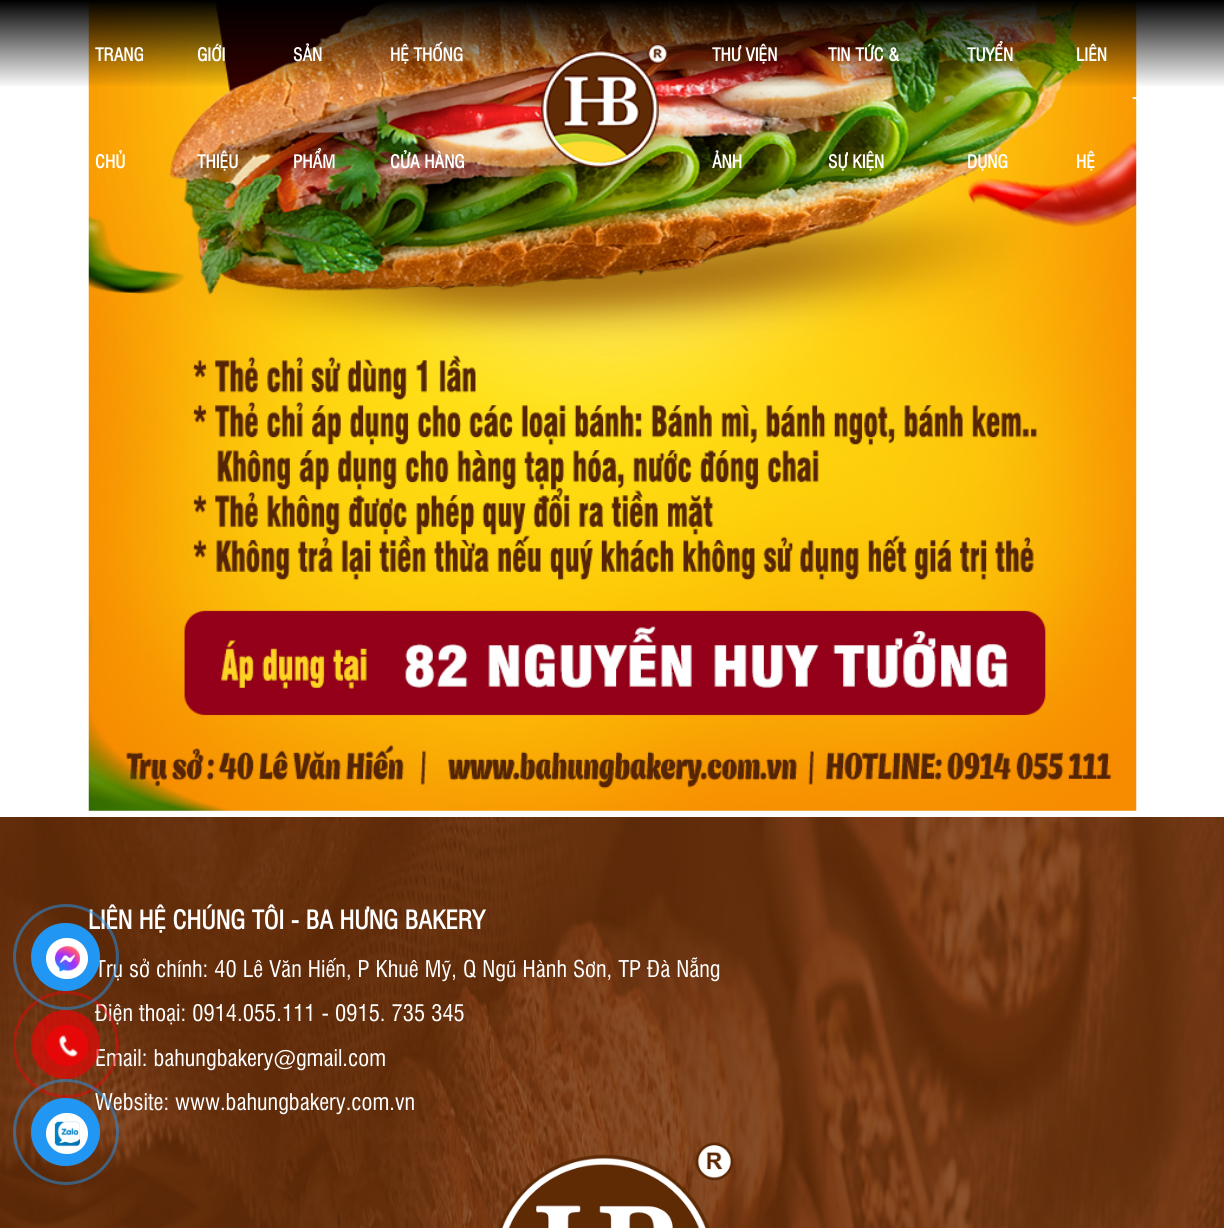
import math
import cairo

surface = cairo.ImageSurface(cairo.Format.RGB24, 1224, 1228)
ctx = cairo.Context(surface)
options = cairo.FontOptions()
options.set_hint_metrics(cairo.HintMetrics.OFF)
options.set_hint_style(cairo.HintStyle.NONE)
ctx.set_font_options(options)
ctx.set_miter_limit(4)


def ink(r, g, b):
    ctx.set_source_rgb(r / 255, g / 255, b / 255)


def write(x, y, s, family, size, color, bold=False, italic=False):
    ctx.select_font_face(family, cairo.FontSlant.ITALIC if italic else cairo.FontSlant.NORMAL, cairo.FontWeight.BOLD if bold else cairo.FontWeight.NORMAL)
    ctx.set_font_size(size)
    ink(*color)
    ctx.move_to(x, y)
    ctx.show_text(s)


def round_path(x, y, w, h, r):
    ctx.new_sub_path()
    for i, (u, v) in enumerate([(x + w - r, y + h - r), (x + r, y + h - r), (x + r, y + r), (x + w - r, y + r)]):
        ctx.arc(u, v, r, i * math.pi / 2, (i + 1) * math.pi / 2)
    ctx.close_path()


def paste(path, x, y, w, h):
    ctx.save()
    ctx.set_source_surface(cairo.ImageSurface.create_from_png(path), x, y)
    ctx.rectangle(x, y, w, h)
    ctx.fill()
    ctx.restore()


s1 = dict(family="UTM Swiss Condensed", size=25, color=(255, 255, 255), bold=True)
s2 = dict(family="UTM Swiss Condensed", size=22.5, color=(255, 255, 255))
s3 = dict(family="UTM Swiss Condensed", size=17.5, color=(255, 255, 255), bold=True)

ink(255, 255, 255)
ctx.paint()
paste("pic5.png", 0, 817, 1224, 411)
write(88, 929, "LIÊN HỆ CHÚNG TÔI - BA HƯNG BAKERY", **s1)
write(95, 977, "Trụ sở chính: 40 Lê Văn Hiến, P Khuê Mỹ, Q Ngũ Hành Sơn, TP Đà Nẵng", **s2)
write(95, 1021, "Điện thoại: 0914.055.111 - 0915. 735 345", **s2)
write(95, 1066, "Email: bahungbakery@gmail.com", **s2)
write(95, 1110, "Website: www.bahungbakery.com.vn", **s2)
round_path(14.5, 992.5, 103, 104, 51.5)
ctx.set_source_rgba(0.902, 0.031, 0.031, 0.5)
ctx.set_line_width(3)
ctx.stroke()
ctx.arc(66, 957, 51.5, 0, 2 * math.pi)
ctx.set_source_rgba(0.129, 0.588, 0.953, 0.5)
ctx.stroke()
ink(33, 150, 243)
round_path(31, 923, 69, 68, 34)
ctx.fill()
ink(255, 255, 255)
round_path(46, 938, 42, 41, 20.5)
ctx.fill()
paste("pic1.png", 54, 945, 26, 27)
paste("pic2.png", 88, 1, 1049, 810)
gradient = cairo.LinearGradient(613, 0, 613, 88)
gradient.add_color_stop_rgba(0, 0, 0, 0, 1)
gradient.add_color_stop_rgba(1, 0, 0, 0, 0)
ctx.set_source(gradient)
ctx.rectangle(0, 0, 1224, 86)
ctx.fill()
write(95, 61, "TRANG", **s3)
write(95, 168, "CHỦ", **s3)
write(197, 61, "GIỚI", **s3)
write(197, 168, "THIỆU", **s3)
write(293, 61, "SẢN", **s3)
write(293, 168, "PHẨM", **s3)
write(390, 61, "HỆ THỐNG", **s3)
write(390, 168, "CỬA HÀNG", **s3)
paste("pic3.png", 541, 43, 127, 125)
write(712, 61, "THƯ VIỆN", **s3)
write(712, 168, "ẢNH", **s3)
write(828, 61, "TIN TỨC &", **s3)
write(828, 168, "SỰ KIỆN", **s3)
write(967, 61, "TUYỂN", **s3)
write(967, 168, "DỤNG", **s3)
write(1076, 61, "LIÊN", **s3)
write(1076, 168, "HỆ", **s3)
paste("pic4.png", 1132, 97, 5, 5)
paste("pic6.png", 498, 1142, 236, 86)
ctx.set_source_rgba(0.902, 0.031, 0.031, 0.7)
ctx.arc(65.5, 1044.5, 34.5, 0, 2 * math.pi)
ctx.fill()
ink(230, 8, 8)
round_path(46, 1025, 42, 41, 20.5)
ctx.fill()
paste("pic7.png", 58, 1035, 20, 23)
ctx.arc(66, 1132, 51.5, 0, 2 * math.pi)
ctx.set_source_rgba(0.129, 0.588, 0.953, 0.5)
ctx.stroke()
ink(33, 150, 243)
round_path(31, 1098, 69, 68, 34)
ctx.fill()
ink(255, 255, 255)
round_path(46, 1113, 42, 41, 20.5)
ctx.fill()
paste("pic8.png", 54, 1121, 26, 26)
surface.write_to_png("screenshot.png")
